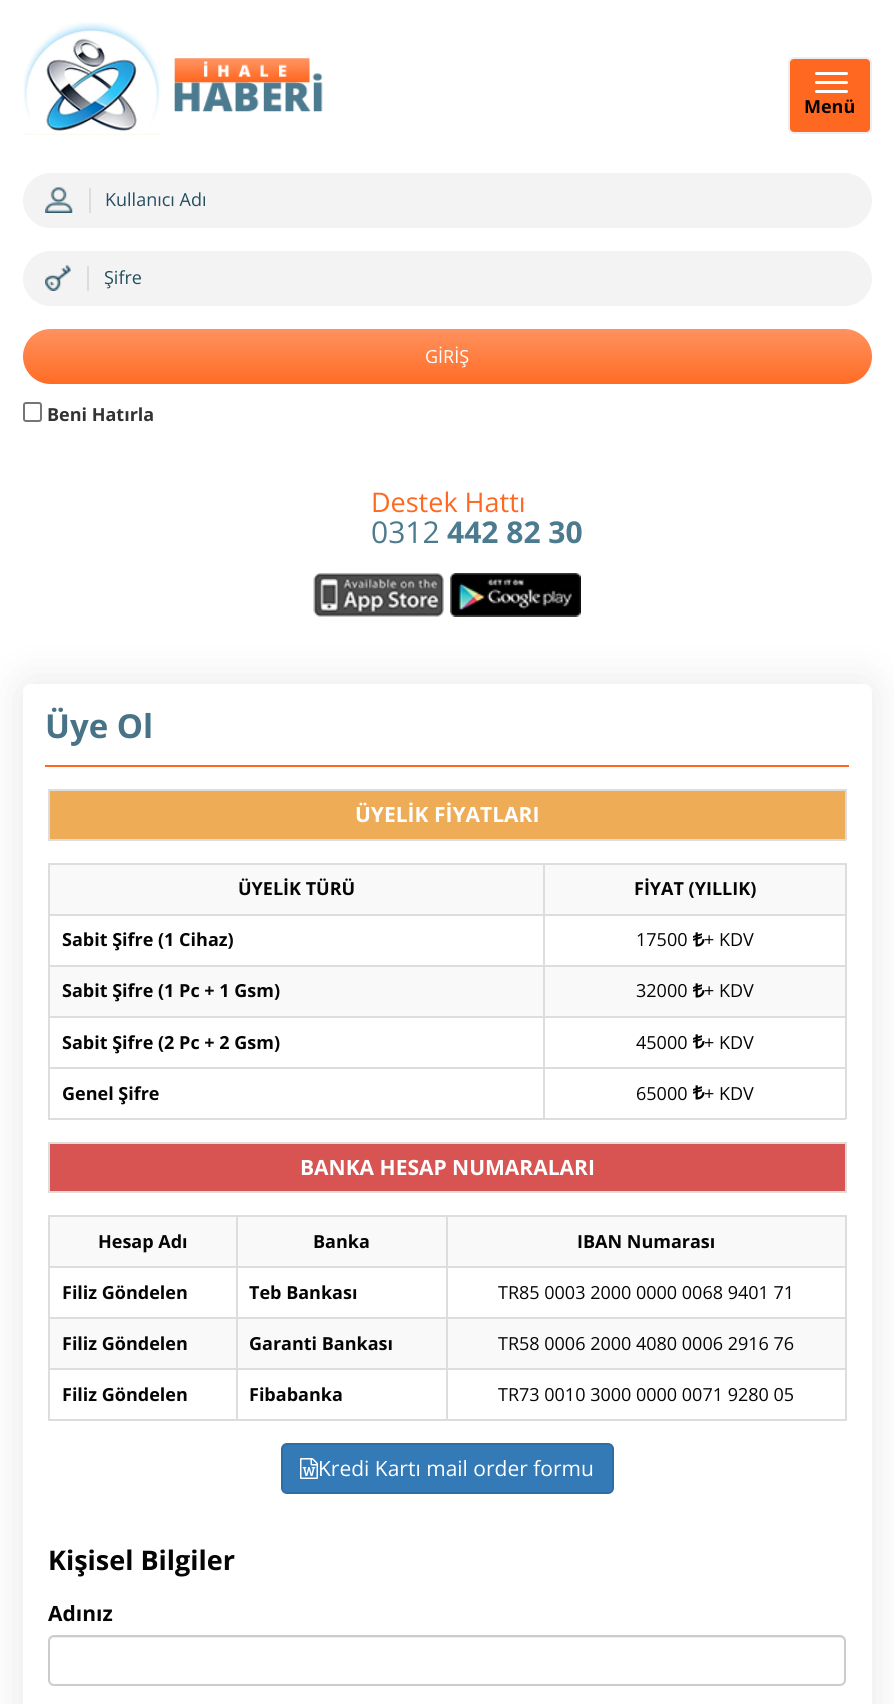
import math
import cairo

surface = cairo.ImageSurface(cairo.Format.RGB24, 894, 1704)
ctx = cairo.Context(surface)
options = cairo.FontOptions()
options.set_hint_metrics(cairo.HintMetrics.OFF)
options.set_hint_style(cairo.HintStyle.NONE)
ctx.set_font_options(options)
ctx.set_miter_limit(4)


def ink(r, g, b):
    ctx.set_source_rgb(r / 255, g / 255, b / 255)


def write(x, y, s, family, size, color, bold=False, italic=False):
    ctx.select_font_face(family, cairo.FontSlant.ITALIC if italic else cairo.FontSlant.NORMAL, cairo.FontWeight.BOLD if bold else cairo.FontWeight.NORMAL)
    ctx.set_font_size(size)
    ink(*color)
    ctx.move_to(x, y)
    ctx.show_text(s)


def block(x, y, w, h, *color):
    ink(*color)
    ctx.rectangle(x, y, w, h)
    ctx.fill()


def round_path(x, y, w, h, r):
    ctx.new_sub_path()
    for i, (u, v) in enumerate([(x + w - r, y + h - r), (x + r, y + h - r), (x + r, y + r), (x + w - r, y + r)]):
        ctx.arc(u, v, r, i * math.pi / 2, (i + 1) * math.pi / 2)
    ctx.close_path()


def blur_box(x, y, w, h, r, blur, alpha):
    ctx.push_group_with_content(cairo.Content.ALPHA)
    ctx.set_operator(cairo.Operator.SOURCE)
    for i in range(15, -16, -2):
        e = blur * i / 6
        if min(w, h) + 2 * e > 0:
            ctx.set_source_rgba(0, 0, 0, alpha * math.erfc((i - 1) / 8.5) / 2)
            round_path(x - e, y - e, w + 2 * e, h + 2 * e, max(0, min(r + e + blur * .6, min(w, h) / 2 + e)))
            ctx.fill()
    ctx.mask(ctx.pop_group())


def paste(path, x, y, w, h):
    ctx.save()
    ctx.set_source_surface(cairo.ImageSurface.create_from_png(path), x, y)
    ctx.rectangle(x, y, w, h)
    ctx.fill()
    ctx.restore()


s1 = dict(family="Open Sans", size=18, color=(5, 5, 5), bold=True)
s2 = dict(family="Open Sans", size=18, color=(35, 77, 96))
s3 = dict(family="Open Sans", size=18, color=(255, 255, 255))
s4 = dict(family="Open Sans", size=18, color=(51, 51, 51), bold=True)
s5 = dict(family="Open Sans", size=27, color=(255, 104, 33))
s6 = dict(family="Open Sans", size=30, color=(76, 122, 143))
s7 = dict(family="Open Sans", size=30, color=(76, 122, 143), bold=True)
s8 = dict(family="Open Sans", size=33, color=(72, 115, 134), bold=True)
s9 = dict(family="Open Sans", size=21, color=(255, 255, 255), bold=True)
s10 = dict(family="Open Sans", size=18, color=(5, 5, 5))
s11 = dict(family="Open Sans", size=21, color=(255, 255, 255))
s12 = dict(family="Open Sans", size=27, color=(5, 5, 5), bold=True)
s13 = dict(family="Open Sans", size=21, color=(5, 5, 5), bold=True)

ink(255, 255, 255)
ctx.paint()
paste("pic1.png", 22, 22, 301, 113)
ink(255, 104, 33)
round_path(789, 58, 82, 75, 5)
ctx.fill_preserve()
ink(238, 238, 238)
ctx.stroke()
ink(255, 255, 255)
round_path(815, 72, 33, 3, 1.5)
ctx.fill()
round_path(815, 81, 33, 3, 1.5)
ctx.fill()
round_path(815, 90, 33, 3, 1.5)
ctx.fill()
write(804, 113, "Menü", **s1)
ink(243, 243, 243)
round_path(23, 173, 849, 55, 27.5)
ctx.fill()
paste("pic2.png", 45, 187, 28, 26)
block(89, 188, 2, 25, 220, 220, 220)
write(105, 206, "Kullanıcı Adı", **s2)
ink(243, 243, 243)
round_path(23, 251, 849, 55, 27.5)
ctx.fill()
paste("pic3.png", 45, 265, 26, 26)
block(87, 266, 2, 25, 220, 220, 220)
write(104, 284, "Şifre", **s2)
gradient = cairo.LinearGradient(447, 328, 447, 384)
gradient.add_color_stop_rgba(0, 1, 0.573, 0.373, 1)
gradient.add_color_stop_rgba(1, 1, 0.424, 0.145, 1)
ctx.set_source(gradient)
round_path(23, 329, 849, 55, 27.5)
ctx.fill()
write(425, 363, "GİRİŞ", **s3)
round_path(24, 403, 17, 18, 2)
ink(118, 118, 118)
ctx.stroke()
write(47, 421, "Beni Hatırla", **s4)
write(371, 512, "Destek Hattı", **s5)
write(371, 543, "0312", **s6)
write(447, 543, "442 82 30", **s7)
paste("pic4.png", 313, 573, 131, 44)
paste("pic5.png", 450, 573, 131, 44)
ink(0, 0, 0)
blur_box(23, 684, 849, 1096, 8, 22.5, 0.1)
ink(255, 255, 255)
round_path(23, 684, 849, 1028, 8)
ctx.fill()
block(45, 765, 804, 2, 255, 104, 33)
write(45, 738, "Üye Ol", **s8)
block(48, 789, 798, 2, 221, 221, 221)
block(845, 789, 2, 51, 221, 221, 221)
block(48, 839, 798, 2, 221, 221, 221)
block(48, 789, 2, 51, 221, 221, 221)
block(50, 791, 795, 48, 238, 172, 87)
write(355, 822, "ÜYELİK FİYATLARI", **s9)
block(48, 863, 798, 2, 221, 221, 221)
block(845, 863, 2, 256, 221, 221, 221)
block(48, 1118, 798, 2, 221, 221, 221)
block(48, 863, 2, 256, 221, 221, 221)
block(50, 865, 795, 49, 249, 249, 249)
write(238, 895, "ÜYELİK TÜRÜ", **s1)
block(543, 914, 303, 2, 221, 221, 221)
block(543, 965, 303, 2, 221, 221, 221)
block(50, 967, 795, 49, 249, 249, 249)
block(543, 1016, 303, 2, 221, 221, 221)
block(543, 1067, 303, 2, 221, 221, 221)
block(543, 1067, 2, 52, 221, 221, 221)
block(48, 1067, 497, 2, 221, 221, 221)
block(543, 1016, 2, 52, 221, 221, 221)
block(48, 1016, 497, 2, 221, 221, 221)
block(543, 965, 2, 52, 221, 221, 221)
block(48, 965, 497, 2, 221, 221, 221)
block(543, 914, 2, 52, 221, 221, 221)
block(48, 914, 497, 2, 221, 221, 221)
block(543, 863, 2, 52, 221, 221, 221)
write(634, 895, "FİYAT (YILLIK)", **s1)
write(62, 946, "Sabit Şifre (1 Cihaz)", **s1)
write(636, 946, "17500", **s10)
paste("pic6.png", 693, 932, 12, 15)
write(704, 946, "+ KDV", **s10)
write(62, 997, "Sabit Şifre (1 Pc + 1 Gsm)", **s1)
write(636, 997, "32000", **s10)
paste("pic7.png", 693, 983, 12, 15)
write(704, 997, "+ KDV", **s10)
write(62, 1049, "Sabit Şifre (2 Pc + 2 Gsm)", **s1)
write(636, 1049, "45000", **s10)
paste("pic6.png", 693, 1034, 12, 15)
write(704, 1049, "+ KDV", **s10)
write(62, 1100, "Genel Şifre", **s1)
write(636, 1100, "65000", **s10)
paste("pic6.png", 693, 1085, 12, 15)
write(704, 1100, "+ KDV", **s10)
block(48, 1142, 798, 2, 221, 221, 221)
block(845, 1142, 2, 51, 221, 221, 221)
block(48, 1191, 798, 2, 221, 221, 221)
block(48, 1142, 2, 51, 221, 221, 221)
block(50, 1144, 795, 47, 215, 84, 82)
write(300, 1175, "BANKA HESAP NUMARALARI", **s9)
block(48, 1215, 798, 2, 221, 221, 221)
block(845, 1215, 2, 206, 221, 221, 221)
block(48, 1419, 798, 2, 221, 221, 221)
block(48, 1215, 2, 206, 221, 221, 221)
block(50, 1217, 795, 49, 249, 249, 249)
write(98, 1248, "Hesap Adı", **s1)
block(446, 1266, 400, 2, 221, 221, 221)
block(446, 1317, 400, 2, 221, 221, 221)
block(50, 1319, 795, 49, 249, 249, 249)
block(446, 1368, 400, 2, 221, 221, 221)
block(446, 1368, 2, 53, 221, 221, 221)
block(236, 1368, 211, 2, 221, 221, 221)
block(446, 1317, 2, 53, 221, 221, 221)
block(236, 1317, 211, 2, 221, 221, 221)
block(446, 1266, 2, 53, 221, 221, 221)
block(236, 1266, 211, 2, 221, 221, 221)
block(236, 1368, 2, 53, 221, 221, 221)
block(48, 1368, 189, 2, 221, 221, 221)
block(236, 1317, 2, 53, 221, 221, 221)
block(48, 1317, 189, 2, 221, 221, 221)
block(236, 1266, 2, 53, 221, 221, 221)
block(48, 1266, 189, 2, 221, 221, 221)
block(236, 1215, 2, 53, 221, 221, 221)
write(313, 1248, "Banka", **s1)
block(446, 1215, 2, 53, 221, 221, 221)
write(577, 1248, "IBAN Numarası", **s1)
write(62, 1299, "Filiz Göndelen", **s1)
write(249, 1299, "Teb Bankası", **s1)
write(498, 1299, "TR85 0003 2000 0000 0068 9401 71", **s10)
write(62, 1350, "Filiz Göndelen", **s1)
write(249, 1350, "Garanti Bankası", **s1)
write(498, 1350, "TR58 0006 2000 4080 0006 2916 76", **s10)
write(62, 1401, "Filiz Göndelen", **s1)
write(249, 1401, "Fibabanka", **s1)
write(498, 1401, "TR73 0010 3000 0000 0071 9280 05", **s10)
ink(51, 122, 183)
round_path(282, 1444, 331, 49, 5)
ctx.fill_preserve()
ink(46, 109, 164)
ctx.stroke()
paste("pic8.png", 300, 1458, 18, 21)
write(318, 1476, "Kredi Kartı mail order formu", **s11)
write(48, 1570, "Kişisel Bilgiler", **s12)
write(48, 1621, "Adınız", **s13)
ink(236, 236, 236)
ctx.new_path()
ctx.move_to(54, 1638)
ctx.line_to(840, 1638)
ctx.curve_to(842, 1638, 844, 1640, 844, 1642)
ctx.line_to(844, 1683)
ctx.curve_to(845, 1682, 845, 1681, 845, 1680)
ctx.line_to(845, 1642)
ctx.curve_to(845, 1639, 843, 1637, 840, 1637)
ctx.line_to(55, 1637)
ctx.curve_to(52, 1637, 50, 1639, 50, 1642)
ctx.curve_to(50, 1640, 52, 1638, 54, 1638)
ctx.close_path()
ctx.fill()
round_path(49, 1636, 796, 49, 5)
ink(204, 204, 204)
ctx.stroke()
surface.write_to_png("screenshot.png")
